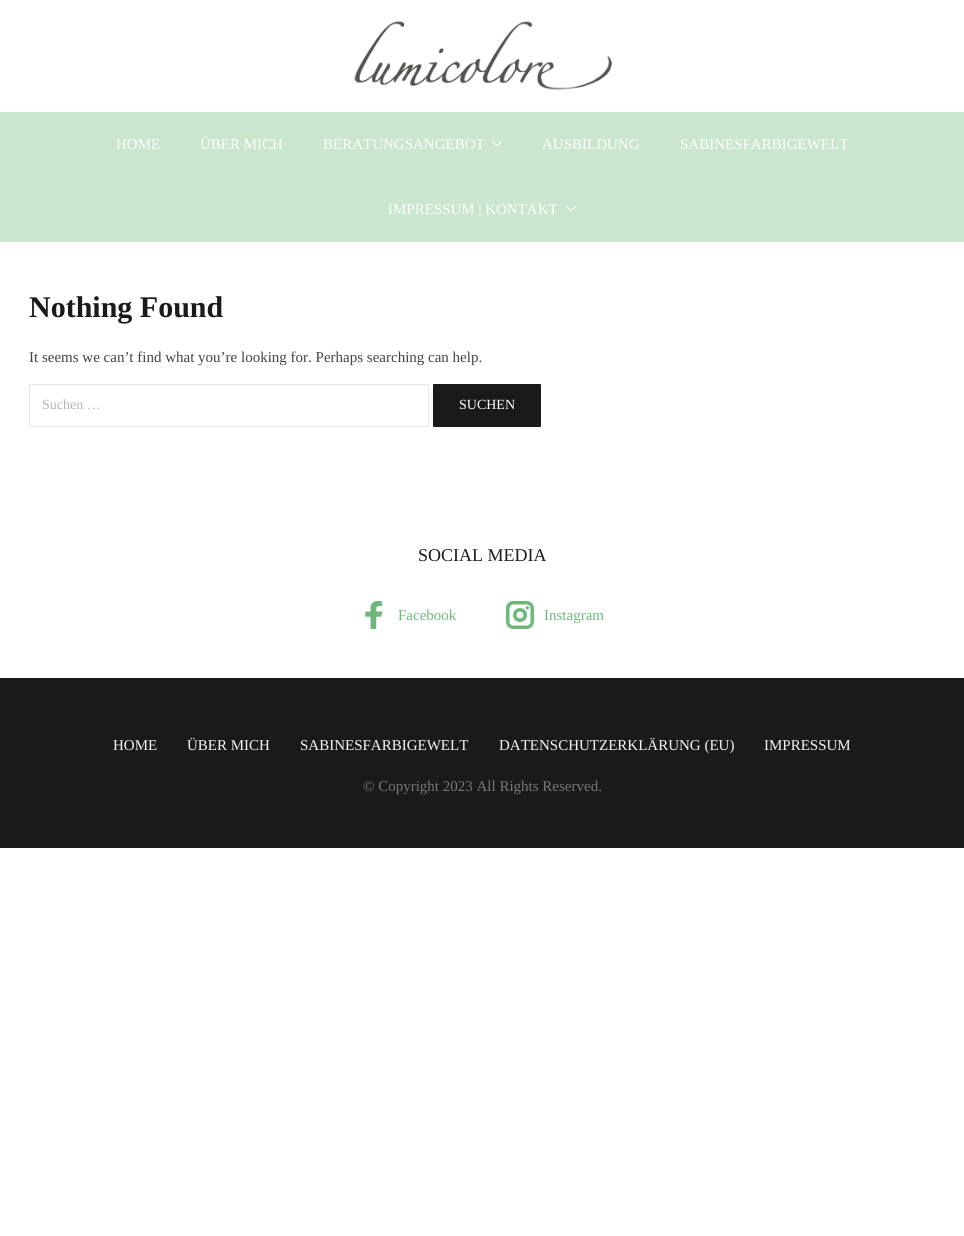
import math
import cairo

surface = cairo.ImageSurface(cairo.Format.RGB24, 964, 1236)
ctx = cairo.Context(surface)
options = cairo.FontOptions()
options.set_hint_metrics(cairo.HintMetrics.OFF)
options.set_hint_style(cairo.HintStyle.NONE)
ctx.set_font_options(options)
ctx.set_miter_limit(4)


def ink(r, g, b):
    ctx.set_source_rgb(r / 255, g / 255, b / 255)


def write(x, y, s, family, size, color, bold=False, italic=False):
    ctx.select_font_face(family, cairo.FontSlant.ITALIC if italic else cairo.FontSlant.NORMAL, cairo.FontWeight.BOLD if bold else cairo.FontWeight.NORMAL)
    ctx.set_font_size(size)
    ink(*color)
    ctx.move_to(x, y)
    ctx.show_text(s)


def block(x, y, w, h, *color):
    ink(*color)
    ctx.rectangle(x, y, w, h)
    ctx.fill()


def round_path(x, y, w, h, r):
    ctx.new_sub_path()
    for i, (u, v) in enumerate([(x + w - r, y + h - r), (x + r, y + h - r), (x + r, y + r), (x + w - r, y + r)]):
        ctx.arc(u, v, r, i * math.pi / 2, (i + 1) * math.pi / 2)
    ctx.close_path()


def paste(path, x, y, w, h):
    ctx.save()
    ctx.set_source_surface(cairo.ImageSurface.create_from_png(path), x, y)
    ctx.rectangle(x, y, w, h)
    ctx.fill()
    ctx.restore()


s1 = dict(family="Liberation Serif", size=15, color=(255, 255, 255))
s2 = dict(family="Liberation Serif", size=30, color=(26, 26, 26), bold=True)
s3 = dict(family="Liberation Serif", size=15, color=(66, 66, 66))
s4 = dict(family="Liberation Serif", size=14, color=(179, 179, 179))
s5 = dict(family="Liberation Serif", size=14, color=(255, 255, 255))
s6 = dict(family="Liberation Serif", size=18, color=(26, 26, 26))
s7 = dict(family="Liberation Serif", size=15, color=(112, 183, 126))
s8 = dict(family="Liberation Serif", size=15, color=(245, 247, 248))
s9 = dict(family="Liberation Serif", size=15, color=(119, 119, 119))

ink(255, 255, 255)
ctx.paint()
paste("pic1.png", 354, 21, 258, 69)
block(0, 112, 964, 130, 202, 230, 206)
write(116, 149, "HOME", **s1)
write(200, 149, "ÜBER MICH", **s1)
write(323, 149, "BERATUNGSANGEBOT", **s1)
paste("pic2.png", 492, 141, 10, 5)
write(542, 149, "AUSBILDUNG", **s1)
write(680, 149, "SABINESFARBIGEWELT", **s1)
write(388, 214, "IMPRESSUM | KONTAKT", **s1)
paste("pic2.png", 566, 206, 10, 5)
write(29, 317, "Nothing Found", **s2)
write(29, 362, "It seems we can’t find what you’re looking for. Perhaps searching can help.", **s3)
round_path(29.5, 384.5, 399, 42, 0.5)
ink(230, 230, 230)
ctx.set_line_width(1)
ctx.stroke()
write(42, 409, "Suchen …", **s4)
ink(26, 26, 26)
round_path(433.5, 384.5, 107, 42, 0.5)
ctx.fill_preserve()
ctx.stroke()
write(459, 409, "SUCHEN", **s5)
write(418, 561, "SOCIAL MEDIA", **s6)
paste("pic3.png", 365, 601, 18, 28)
write(398, 620, "Facebook", **s7)
paste("pic4.png", 506, 601, 28, 28)
write(544, 620, "Instagram", **s7)
block(0, 678, 964, 170, 26, 26, 26)
write(113, 750, "HOME", **s8)
write(187, 750, "ÜBER MICH", **s8)
write(300, 750, "SABINESFARBIGEWELT", **s8)
write(499, 750, "DATENSCHUTZERKLÄRUNG (EU)", **s8)
write(764, 750, "IMPRESSUM", **s8)
write(363, 791, "© Copyright 2023 All Rights Reserved.", **s9)
surface.write_to_png("screenshot.png")
